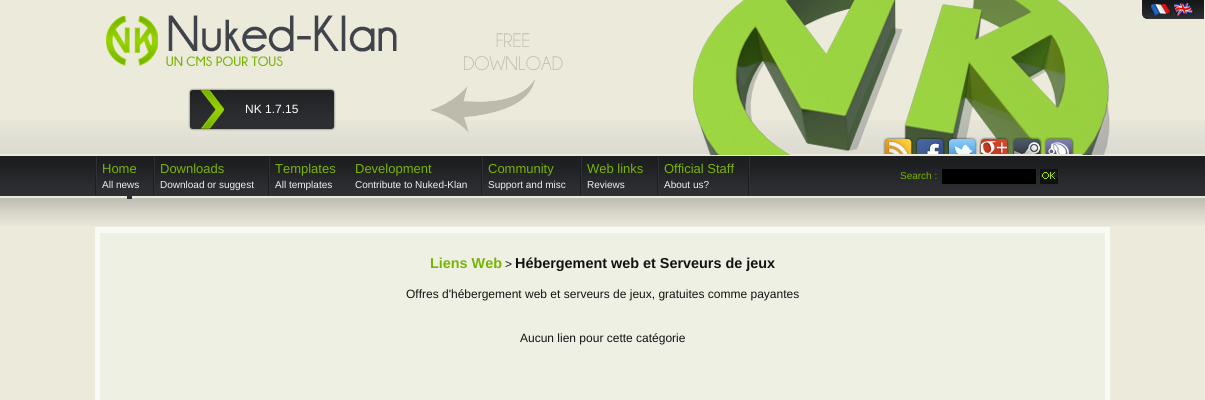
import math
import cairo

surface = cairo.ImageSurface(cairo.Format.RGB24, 1205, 400)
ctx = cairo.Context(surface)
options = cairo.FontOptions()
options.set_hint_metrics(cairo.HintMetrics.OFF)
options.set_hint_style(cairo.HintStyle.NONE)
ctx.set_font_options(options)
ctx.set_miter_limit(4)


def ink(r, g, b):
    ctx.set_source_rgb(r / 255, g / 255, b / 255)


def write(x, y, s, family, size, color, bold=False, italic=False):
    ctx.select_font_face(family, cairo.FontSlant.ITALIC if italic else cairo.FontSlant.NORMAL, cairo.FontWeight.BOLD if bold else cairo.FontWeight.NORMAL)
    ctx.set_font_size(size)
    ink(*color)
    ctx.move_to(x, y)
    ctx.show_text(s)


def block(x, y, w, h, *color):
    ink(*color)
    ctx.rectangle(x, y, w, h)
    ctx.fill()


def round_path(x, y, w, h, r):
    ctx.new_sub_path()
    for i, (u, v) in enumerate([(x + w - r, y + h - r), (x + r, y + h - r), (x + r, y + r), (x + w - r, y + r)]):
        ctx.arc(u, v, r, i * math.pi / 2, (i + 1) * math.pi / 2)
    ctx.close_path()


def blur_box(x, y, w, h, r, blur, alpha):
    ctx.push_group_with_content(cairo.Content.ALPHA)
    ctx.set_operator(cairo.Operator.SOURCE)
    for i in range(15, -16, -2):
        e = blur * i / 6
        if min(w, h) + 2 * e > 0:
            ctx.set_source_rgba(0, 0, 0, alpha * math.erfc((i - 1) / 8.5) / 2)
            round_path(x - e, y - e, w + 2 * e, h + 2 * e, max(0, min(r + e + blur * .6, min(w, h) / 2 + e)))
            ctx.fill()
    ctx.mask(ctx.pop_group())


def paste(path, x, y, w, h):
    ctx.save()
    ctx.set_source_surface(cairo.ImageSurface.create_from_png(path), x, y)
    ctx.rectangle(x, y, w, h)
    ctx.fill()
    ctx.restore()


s1 = dict(family="Liberation Sans", size=12, color=(255, 255, 255))
s2 = dict(family="Liberation Sans", size=13, color=(120, 180, 4))
s3 = dict(family="Liberation Sans", size=10, color=(241, 241, 241))
s4 = dict(family="Liberation Sans", size=10, color=(120, 180, 4))
s5 = dict(family="Liberation Sans", size=14.4, color=(120, 180, 4), bold=True)
s6 = dict(family="Liberation Sans", size=12, color=(18, 18, 18))
s7 = dict(family="Liberation Sans", size=14.4, color=(18, 18, 18), bold=True)

ink(236, 234, 219)
ctx.paint()
paste("pic1.png", 0, 120, 1205, 106)
paste("pic2.png", 1142, 0, 62, 19)
paste("pic3.png", 1151, 3, 20, 13)
paste("pic4.png", 1174, 3, 20, 13)
paste("pic5.png", 693, 0, 417, 155)
paste("pic6.png", 106, 16, 52, 50)
paste("pic7.png", 168, 15, 229, 37)
paste("pic8.png", 166, 56, 117, 10)
paste("pic9.png", 464, 33, 99, 38)
paste("pic10.png", 430, 80, 105, 53)
ink(176, 174, 166)
blur_box(189, 89, 146, 41, 4, 0.5, 1)
paste("pic11.png", 190, 90, 144, 39)
paste("pic12.png", 200, 90, 25, 39)
write(245, 113, "NK 1.7.15", **s1)
paste("pic13.png", 883, 137, 31, 17)
paste("pic14.png", 915, 137, 31, 17)
paste("pic15.png", 947, 137, 31, 17)
paste("pic16.png", 979, 137, 31, 17)
paste("pic17.png", 1010, 137, 32, 17)
paste("pic18.png", 1044, 137, 30, 17)
block(942, 169, 94, 15, 0, 0, 0)
ctx.rectangle(941.5, 166.5, 95, 18)
ink(40, 42, 46)
ctx.set_line_width(1)
ctx.stroke()
paste("pic21.png", 1040, 169, 18, 15)
ctx.rectangle(1039.5, 167.5, 19, 17)
ctx.stroke()
paste("pic19.png", 883, 154, 199, 15)
paste("pic20.png", 95, 157, 2, 38)
write(102, 173, "Home", **s2)
write(102, 188, "All news", **s3)
paste("pic20.png", 153, 157, 2, 38)
write(160, 173, "Downloads", **s2)
write(160, 188, "Download or suggest", **s3)
paste("pic20.png", 268, 157, 2, 38)
write(275, 173, "Templates", **s2)
write(275, 188, "All templates", **s3)
write(355, 173, "Development", **s2)
write(355, 188, "Contribute to Nuked-Klan", **s3)
paste("pic20.png", 481, 157, 2, 38)
write(488, 173, "Community", **s2)
write(488, 188, "Support and misc", **s3)
paste("pic20.png", 580, 157, 2, 38)
write(587, 173, "Web links", **s2)
write(587, 188, "Reviews", **s3)
paste("pic20.png", 657, 157, 2, 38)
write(664, 173, "Official Staff", **s2)
write(664, 188, "About us?", **s3)
paste("pic20.png", 748, 157, 2, 38)
write(900, 179, "Search :", **s4)
block(95, 227, 1015, 173, 249, 249, 245)
block(100, 233, 1005, 167, 238, 240, 227)
write(430, 268, "Liens Web", **s5)
write(505, 268, ">", **s6)
write(515, 268, "Hébergement web et Serveurs de jeux", **s7)
write(406, 298, "Offres d'hébergement web et serveurs de jeux, gratuites comme payantes", **s6)
write(520, 342, "Aucun lien pour cette catégorie", **s6)
block(127, 196, 5, 3, 45, 47, 51)
surface.write_to_png("screenshot.png")
